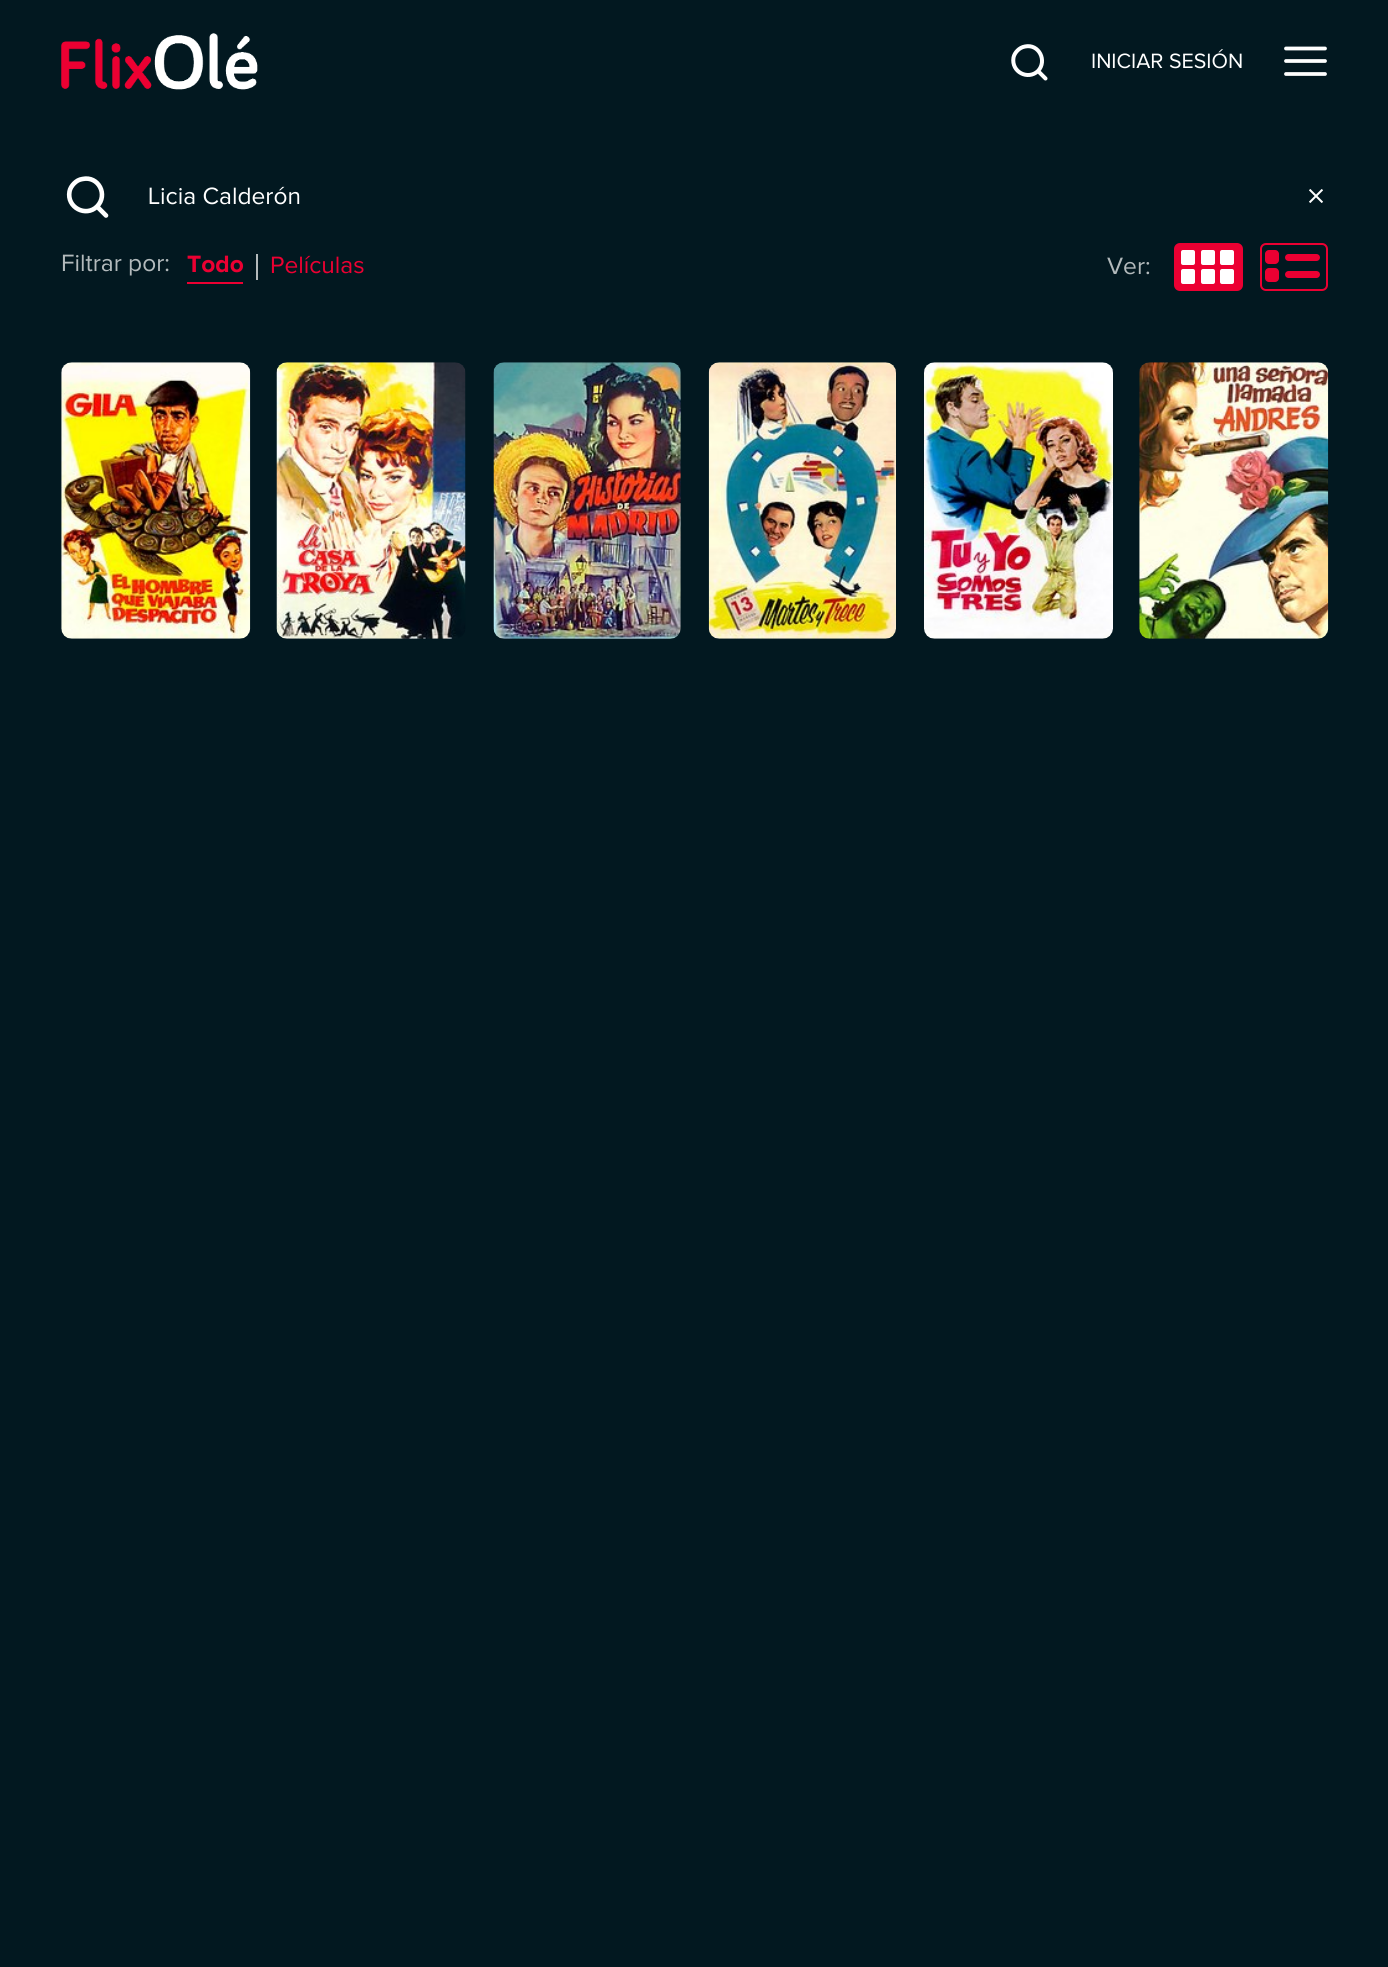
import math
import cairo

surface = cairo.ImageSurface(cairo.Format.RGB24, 1388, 1967)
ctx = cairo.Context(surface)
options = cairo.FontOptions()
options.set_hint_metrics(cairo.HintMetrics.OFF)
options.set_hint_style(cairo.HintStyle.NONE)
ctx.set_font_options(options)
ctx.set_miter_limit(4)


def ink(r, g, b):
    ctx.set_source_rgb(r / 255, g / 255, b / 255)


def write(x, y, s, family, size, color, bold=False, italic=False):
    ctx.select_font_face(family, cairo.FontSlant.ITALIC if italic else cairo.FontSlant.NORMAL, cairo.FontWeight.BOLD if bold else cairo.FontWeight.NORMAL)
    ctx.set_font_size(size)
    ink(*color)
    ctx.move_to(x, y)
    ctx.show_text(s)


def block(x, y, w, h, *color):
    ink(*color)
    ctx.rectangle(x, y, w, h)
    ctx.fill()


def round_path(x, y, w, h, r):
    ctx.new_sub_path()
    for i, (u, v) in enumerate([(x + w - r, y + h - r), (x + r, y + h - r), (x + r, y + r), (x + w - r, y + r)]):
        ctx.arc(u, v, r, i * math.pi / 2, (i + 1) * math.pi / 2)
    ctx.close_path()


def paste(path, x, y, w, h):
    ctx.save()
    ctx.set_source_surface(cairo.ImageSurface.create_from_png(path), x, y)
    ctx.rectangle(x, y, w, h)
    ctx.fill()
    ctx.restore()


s1 = dict(family="Proxima Nova", size=21.5, color=(255, 255, 255))
s2 = dict(family="Proxima Nova", size=24.5, color=(255, 255, 255))
s3 = dict(family="Proxima Nova", size=24.5, color=(179, 186, 188))
s4 = dict(family="Proxima Nova", size=24.5, color=(236, 0, 50), bold=True)
s5 = dict(family="Proxima Nova", size=24.5, color=(236, 0, 50))

ink(2, 24, 32)
ctx.paint()
paste("pic1.png", 61, 33, 197, 57)
ctx.new_path()
ctx.move_to(1045.5, 78.5)
ctx.line_to(1038, 71)
ctx.move_to(1038, 71)
ctx.curve_to(1047.5, 61, 1039, 43.5, 1025, 46.5)
ctx.curve_to(1022, 47, 1019.5, 48.5, 1017.5, 50.5)
ctx.curve_to(1015.5, 52.5, 1014, 55, 1013.5, 57.5)
ctx.curve_to(1011, 72, 1028, 80.5, 1038, 71)
ctx.close_path()
ink(255, 255, 255)
ctx.set_line_width(4)
ctx.set_line_cap(cairo.LineCap.ROUND)
ctx.set_line_join(cairo.LineJoin.ROUND)
ctx.stroke()
write(1091, 68, "INICIAR SESIÓN", **s1)
ctx.new_path()
ctx.move_to(1286, 48.5)
ctx.line_to(1325, 48.5)
ctx.move_to(1286, 61)
ctx.line_to(1325, 61)
ctx.move_to(1286, 74)
ctx.line_to(1325, 74)
ctx.set_line_width(3.8)
ctx.set_line_join(cairo.LineJoin.MITER)
ctx.stroke()
ctx.new_path()
ctx.move_to(106, 215.5)
ctx.line_to(97, 206.5)
ctx.move_to(97, 206.5)
ctx.curve_to(108.5, 195, 98.5, 175.5, 82.5, 179)
ctx.curve_to(79, 179.5, 76.5, 181, 74, 183.5)
ctx.curve_to(72, 185.5, 70, 188.5, 69.5, 191.5)
ctx.curve_to(66.5, 207.5, 86, 217.5, 97, 206.5)
ctx.close_path()
ctx.set_line_width(4.6)
ctx.set_line_join(cairo.LineJoin.ROUND)
ctx.stroke()
write(148, 204, "Licia Calderón", **s2)
paste("pic2.png", 1309, 189, 14, 14)
write(61, 271, "Filtrar por:", **s3)
block(187, 282, 56, 2, 236, 0, 50)
write(187, 272, "Todo", **s4)
block(256, 254, 2, 26, 179, 186, 188)
write(270, 273, "Películas", **s5)
write(1107, 274, "Ver:", **s3)
ink(236, 0, 50)
round_path(1175, 244, 67, 46, 5)
ctx.fill_preserve()
ctx.set_line_width(2)
ctx.set_line_cap(cairo.LineCap.BUTT)
ctx.set_line_join(cairo.LineJoin.MITER)
ctx.stroke()
ink(255, 255, 255)
round_path(1181, 250, 14, 15, 2)
ctx.fill()
round_path(1201, 250, 14, 15, 2)
ctx.fill()
round_path(1181, 269, 14, 15, 2)
ctx.fill()
round_path(1201, 269, 14, 15, 2)
ctx.fill()
round_path(1220, 250, 14, 15, 2)
ctx.fill()
round_path(1220, 269, 14, 15, 2)
ctx.fill()
round_path(1261, 244, 66, 46, 5)
ink(236, 0, 50)
ctx.stroke()
round_path(1265, 250, 14, 14, 4)
ctx.fill()
round_path(1265, 268, 14, 14, 4)
ctx.fill()
round_path(1285, 254, 35, 7, 3.5)
ctx.fill()
round_path(1285, 271, 35, 7, 3.5)
ctx.fill()
paste("pic3.png", 61, 362, 190, 277)
paste("pic4.png", 276, 362, 190, 277)
paste("pic5.png", 493, 362, 188, 277)
paste("pic6.png", 708, 362, 188, 277)
paste("pic7.png", 924, 362, 189, 277)
paste("pic8.png", 1139, 362, 190, 277)
surface.write_to_png("screenshot.png")
